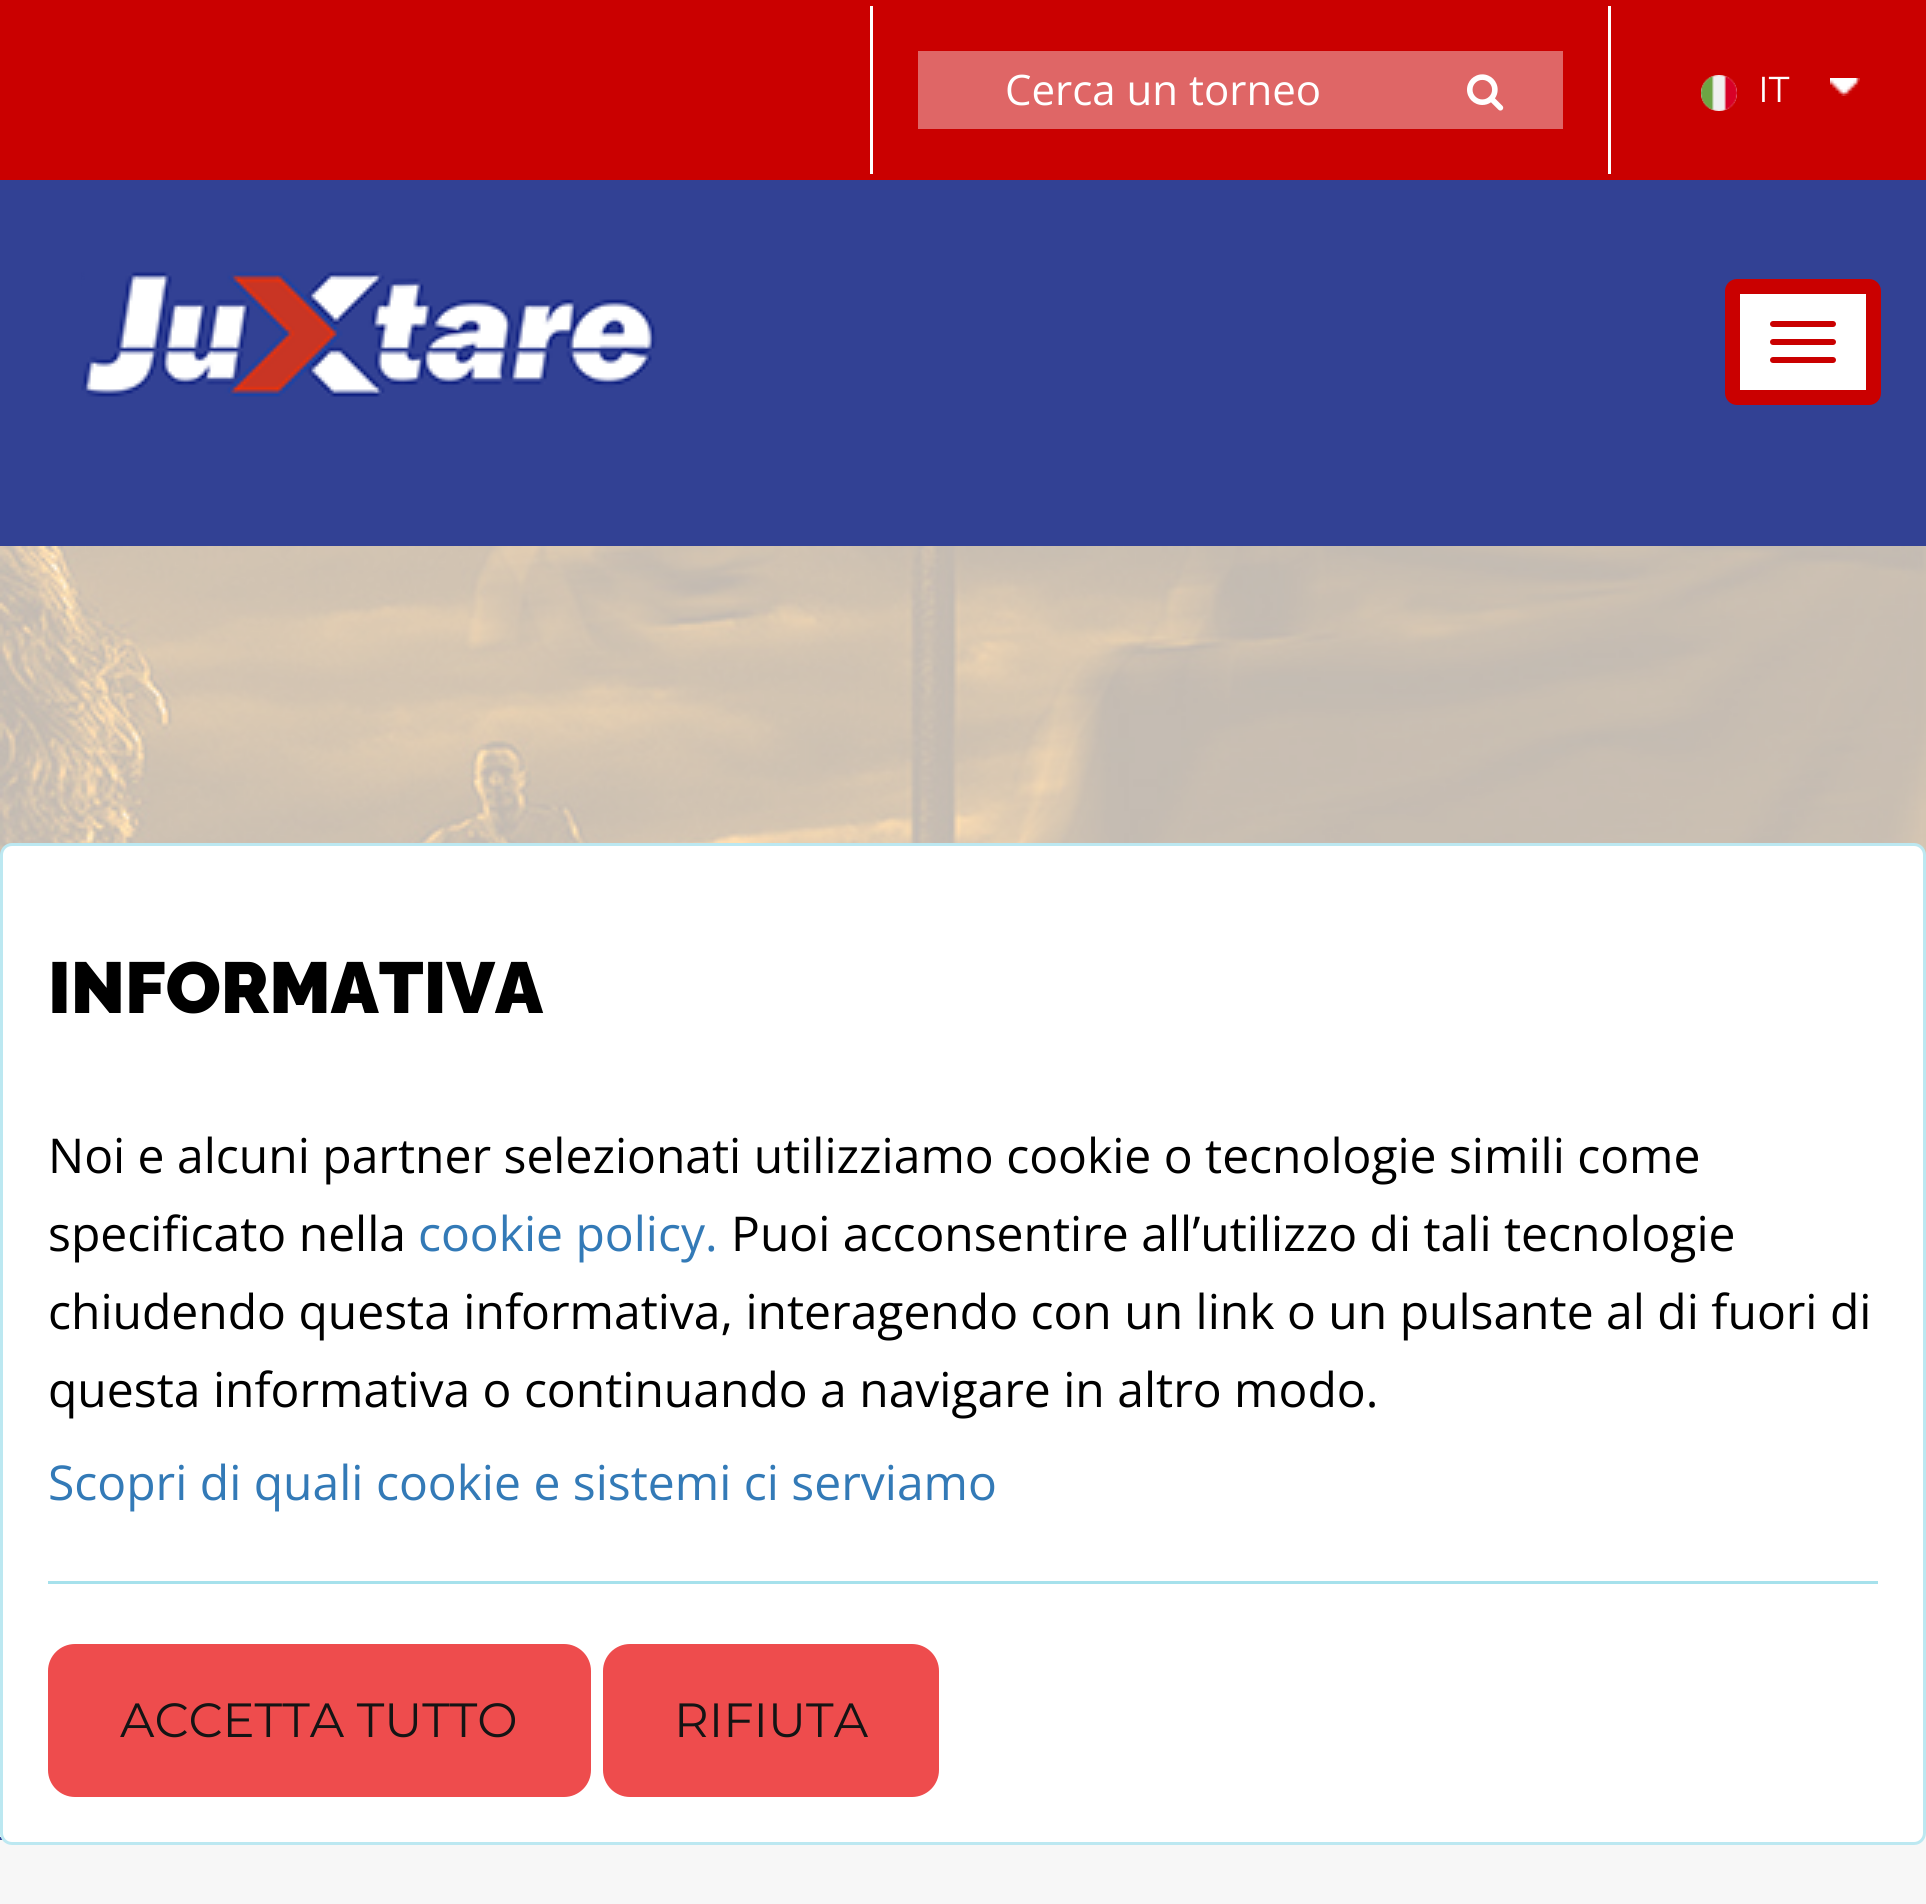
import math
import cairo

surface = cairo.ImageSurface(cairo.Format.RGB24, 1926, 1904)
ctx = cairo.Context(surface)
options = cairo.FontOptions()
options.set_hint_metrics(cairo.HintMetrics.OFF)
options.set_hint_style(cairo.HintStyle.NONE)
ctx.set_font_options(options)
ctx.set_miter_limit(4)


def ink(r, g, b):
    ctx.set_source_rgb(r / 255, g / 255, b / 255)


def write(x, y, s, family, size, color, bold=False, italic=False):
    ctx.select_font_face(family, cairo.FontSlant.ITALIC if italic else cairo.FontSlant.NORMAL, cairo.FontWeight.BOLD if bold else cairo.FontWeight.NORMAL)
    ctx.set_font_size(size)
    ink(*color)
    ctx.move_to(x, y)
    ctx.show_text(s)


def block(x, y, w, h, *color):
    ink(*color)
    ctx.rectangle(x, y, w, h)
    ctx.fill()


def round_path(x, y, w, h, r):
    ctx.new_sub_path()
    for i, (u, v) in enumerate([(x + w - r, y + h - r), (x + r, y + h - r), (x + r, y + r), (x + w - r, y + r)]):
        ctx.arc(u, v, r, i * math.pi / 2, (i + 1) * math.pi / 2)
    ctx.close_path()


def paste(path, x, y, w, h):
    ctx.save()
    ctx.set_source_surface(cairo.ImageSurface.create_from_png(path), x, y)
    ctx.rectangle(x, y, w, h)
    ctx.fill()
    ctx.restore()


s1 = dict(family="Open Sans", size=42, color=(255, 255, 255))
s2 = dict(family="Montserrat Thin", size=36, color=(255, 255, 255))
s3 = dict(family="Raleway Black", size=72, color=(0, 0, 0))
s4 = dict(family="Open Sans", size=48, color=(0, 0, 0))
s5 = dict(family="Open Sans", size=48, color=(51, 122, 183))
s6 = dict(family="Montserrat Thin", size=48, color=(20, 20, 20))

ink(247, 247, 247)
ctx.paint()
block(0, 0, 1926, 180, 202, 0, 0)
block(1608, 6, 3, 168, 255, 255, 255)
block(870, 6, 3, 168, 255, 255, 255)
block(918, 51, 645, 78, 223, 102, 102)
write(1005, 105, "Cerca un torneo", **s1)
paste("pic1.png", 1467, 74, 37, 37)
paste("pic2.png", 1701, 75, 36, 36)
write(1758, 102, "IT", **s2)
paste("pic3.png", 1830, 78, 30, 18)
block(0, 180, 1926, 366, 50, 65, 148)
paste("pic4.png", 81, 271, 576, 126)
ink(255, 255, 255)
round_path(1732.5, 286.5, 141, 111, 4.5)
ctx.fill_preserve()
ink(202, 0, 0)
ctx.set_line_width(15)
ctx.stroke()
round_path(1770, 321, 66, 6, 3)
ctx.fill()
round_path(1770, 339, 66, 6, 3)
ctx.fill()
round_path(1770, 357, 66, 6, 3)
ctx.fill()
paste("pic5.png", 0, 546, 1926, 309)
block(0, 1837, 3, 3, 50, 65, 148)
ink(255, 255, 255)
round_path(1.5, 844.5, 1923, 999, 10.5)
ctx.fill_preserve()
ink(188, 232, 241)
ctx.set_line_width(3)
ctx.stroke()
write(48, 1013, "INFORMATIVA", **s3)
write(48, 1173, "Noi e alcuni partner selezionati utilizziamo cookie o tecnologie simili come", **s4)
write(48, 1251, "specificato nella", **s4)
write(418, 1251, "cookie policy.", **s5)
write(731, 1251, "Puoi acconsentire all’utilizzo di tali tecnologie", **s4)
write(48, 1329, "chiudendo questa informativa, interagendo con un link o un pulsante al di fuori di", **s4)
write(48, 1407, "questa informativa o continuando a navigare in altro modo.", **s4)
write(48, 1500, "Scopri di quali cookie e sistemi ci serviamo", **s5)
block(48, 1581, 1830, 3, 166, 225, 236)
ink(238, 76, 77)
round_path(48, 1644, 543, 153, 27)
ctx.fill()
write(120, 1737, "ACCETTA TUTTO", **s6)
ink(238, 76, 77)
round_path(603, 1644, 336, 153, 27)
ctx.fill()
write(674, 1737, "RIFIUTA", **s6)
surface.write_to_png("screenshot.png")
